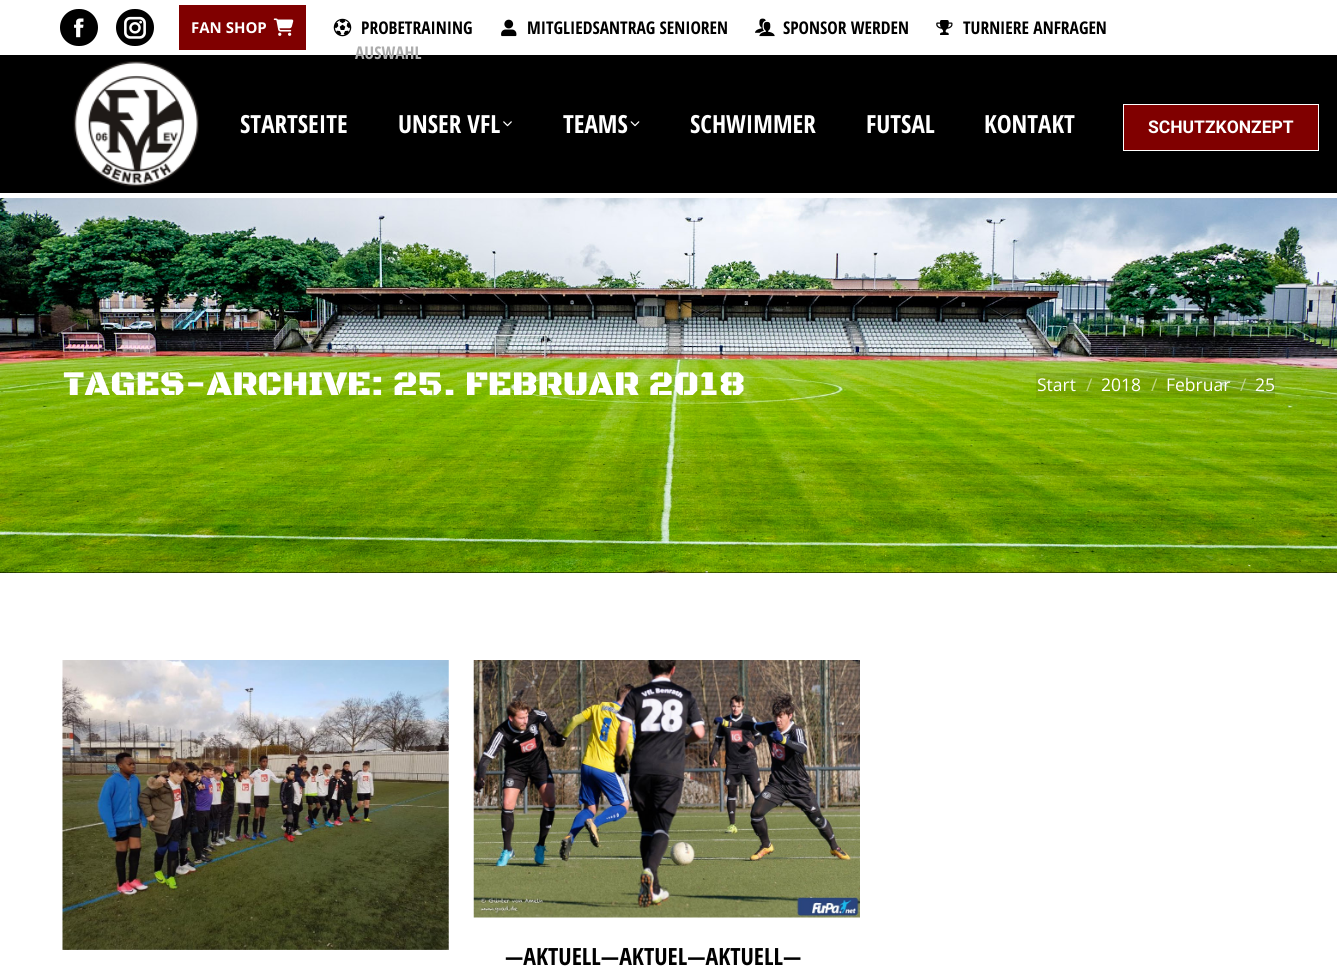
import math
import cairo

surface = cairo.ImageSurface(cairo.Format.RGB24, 1337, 971)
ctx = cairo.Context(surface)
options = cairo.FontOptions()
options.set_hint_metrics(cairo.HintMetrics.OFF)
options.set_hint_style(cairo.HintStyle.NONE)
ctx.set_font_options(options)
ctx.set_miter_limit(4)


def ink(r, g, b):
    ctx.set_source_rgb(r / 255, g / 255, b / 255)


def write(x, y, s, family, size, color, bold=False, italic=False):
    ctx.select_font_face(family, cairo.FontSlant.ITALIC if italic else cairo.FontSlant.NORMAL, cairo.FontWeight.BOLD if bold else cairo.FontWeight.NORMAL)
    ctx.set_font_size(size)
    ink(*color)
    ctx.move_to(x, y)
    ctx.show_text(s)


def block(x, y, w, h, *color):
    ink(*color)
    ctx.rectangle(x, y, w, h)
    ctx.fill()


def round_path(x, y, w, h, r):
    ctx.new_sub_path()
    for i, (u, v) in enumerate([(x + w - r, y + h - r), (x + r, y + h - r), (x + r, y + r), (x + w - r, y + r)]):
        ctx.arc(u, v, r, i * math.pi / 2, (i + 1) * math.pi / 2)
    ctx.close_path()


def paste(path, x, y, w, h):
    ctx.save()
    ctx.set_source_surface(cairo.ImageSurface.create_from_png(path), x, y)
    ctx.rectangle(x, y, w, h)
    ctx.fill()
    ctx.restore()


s1 = dict(family="Open Sans", size=15, color=(255, 255, 255), bold=True)
s2 = dict(family="Open Sans Condensed", size=17.5, color=(0, 0, 0), bold=True)
s3 = dict(family="Open Sans Condensed", size=17.5, color=(172, 172, 172), bold=True)
s4 = dict(family="Open Sans Condensed", size=25, color=(255, 255, 255), bold=True)
s5 = dict(family="Roboto", size=17.5, color=(255, 255, 255), bold=True)
s6 = dict(family="Black Ops One Black", size=35, color=(255, 255, 255))
s7 = dict(family="Open Sans", size=17.5, color=(255, 255, 255))
s8 = dict(family="Open Sans", size=17.5, color=(191, 213, 133))
s9 = dict(family="Open Sans", size=17.5, color=(190, 211, 142))
s10 = dict(family="Open Sans Condensed", size=23.75, color=(0, 0, 0), bold=True)

ink(255, 255, 255)
ctx.paint()
block(0, 55, 1337, 138, 0, 0, 0)
round_path(60, 9, 38, 37, 18.5)
ctx.fill()
paste("pic1.png", 74, 18, 10, 20)
round_path(116, 9, 38, 37, 18.5)
ctx.fill()
paste("pic2.png", 124, 16, 22, 23)
block(179, 5, 127, 45, 128, 0, 0)
write(191, 33, "FAN SHOP", **s1)
paste("pic3.png", 273, 18, 21, 18)
paste("pic4.png", 333, 18, 19, 19)
write(361, 34, "PROBETRAINING", **s2)
paste("pic5.png", 501, 19, 16, 18)
write(527, 34, "MITGLIEDSANTRAG SENIOREN", **s2)
paste("pic6.png", 755, 18, 20, 19)
write(783, 34, "SPONSOR WERDEN", **s2)
paste("pic7.png", 936, 20, 17, 15)
write(963, 34, "TURNIERE ANFRAGEN", **s2)
write(355, 59, "AUSWAHL", **s3)
paste("pic8.png", 73, 61, 126, 126)
write(240, 133, "STARTSEITE", **s4)
write(398, 133, "UNSER VFL", **s4)
paste("pic9.png", 503, 121, 9, 6)
write(563, 133, "TEAMS", **s4)
paste("pic10.png", 630, 121, 10, 6)
write(690, 133, "SCHWIMMER", **s4)
write(866, 133, "FUTSAL", **s4)
write(984, 133, "KONTAKT", **s4)
ink(128, 0, 0)
ctx.rectangle(1123.5, 104.5, 195, 46)
ctx.fill_preserve()
ink(255, 255, 255)
ctx.set_line_width(1)
ctx.stroke()
write(1148, 133, "SCHUTZKONZEPT", **s5)
block(0, 572, 1337, 1, 0, 0, 0)
paste("pic11.png", 0, 198, 1337, 375)
write(63, 395, "TAGES-ARCHIVE: 25. FEBRUAR 2018", **s6)
ctx.set_source_rgba(0, 0, 0, 0.1)
ctx.rectangle(1036, 373, 239, 25)
ctx.fill()
write(1037, 391, "Start", **s7)
write(1086, 391, "/", **s8)
write(1101, 391, "2018", **s7)
write(1151, 391, "/", **s8)
write(1166, 391, "Februar", **s7)
write(1240, 391, "/", **s9)
write(1255, 391, "25", **s7)
paste("pic12.png", 62, 660, 387, 290)
paste("pic13.png", 473, 660, 387, 258)
write(505, 965, "—AKTUELL—AKTUEL—AKTUELL—", **s10)
surface.write_to_png("screenshot.png")
